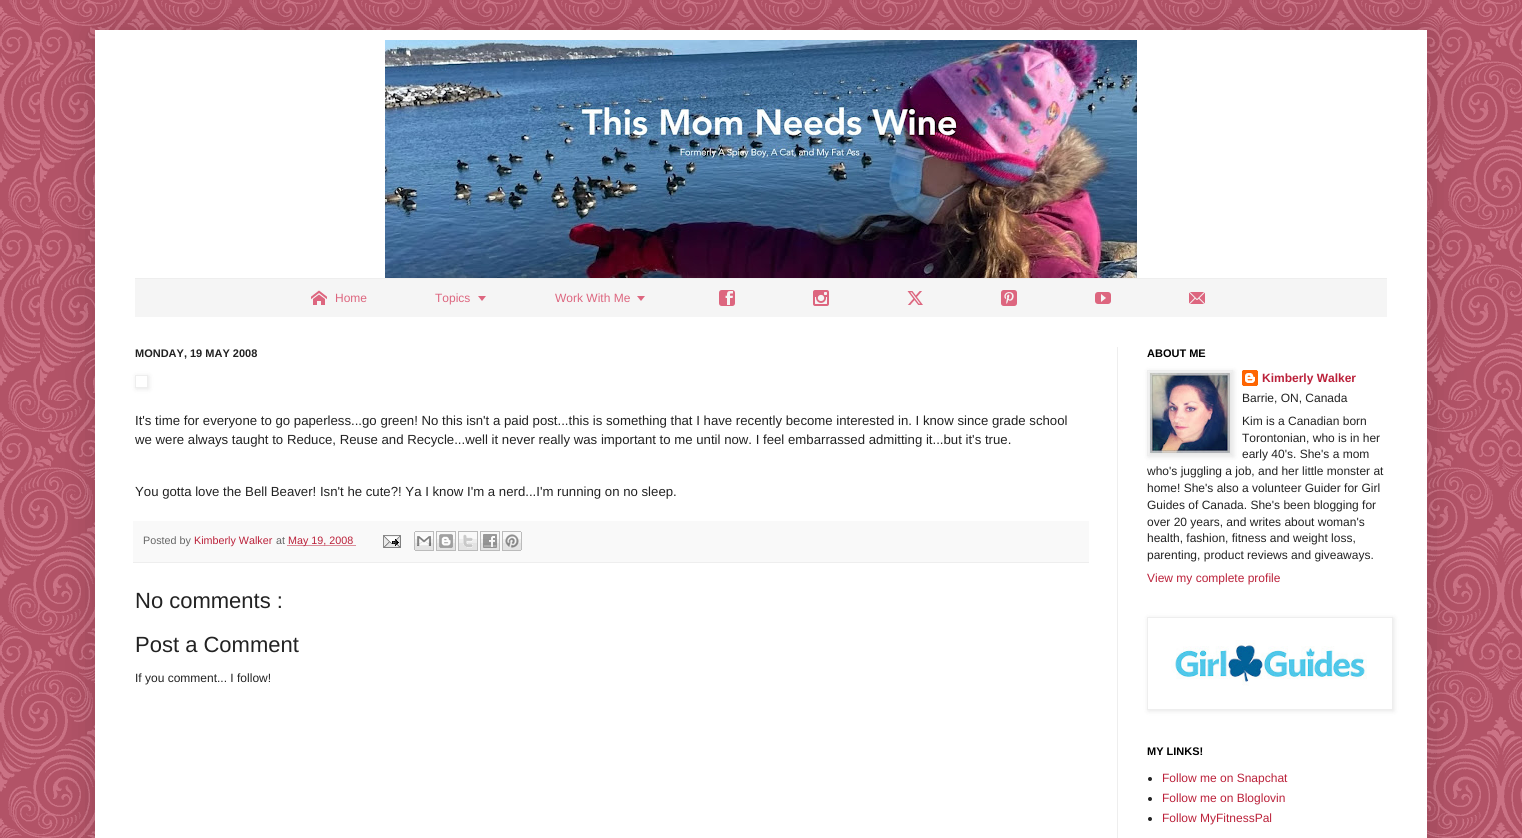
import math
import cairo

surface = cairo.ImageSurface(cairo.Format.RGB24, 1522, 838)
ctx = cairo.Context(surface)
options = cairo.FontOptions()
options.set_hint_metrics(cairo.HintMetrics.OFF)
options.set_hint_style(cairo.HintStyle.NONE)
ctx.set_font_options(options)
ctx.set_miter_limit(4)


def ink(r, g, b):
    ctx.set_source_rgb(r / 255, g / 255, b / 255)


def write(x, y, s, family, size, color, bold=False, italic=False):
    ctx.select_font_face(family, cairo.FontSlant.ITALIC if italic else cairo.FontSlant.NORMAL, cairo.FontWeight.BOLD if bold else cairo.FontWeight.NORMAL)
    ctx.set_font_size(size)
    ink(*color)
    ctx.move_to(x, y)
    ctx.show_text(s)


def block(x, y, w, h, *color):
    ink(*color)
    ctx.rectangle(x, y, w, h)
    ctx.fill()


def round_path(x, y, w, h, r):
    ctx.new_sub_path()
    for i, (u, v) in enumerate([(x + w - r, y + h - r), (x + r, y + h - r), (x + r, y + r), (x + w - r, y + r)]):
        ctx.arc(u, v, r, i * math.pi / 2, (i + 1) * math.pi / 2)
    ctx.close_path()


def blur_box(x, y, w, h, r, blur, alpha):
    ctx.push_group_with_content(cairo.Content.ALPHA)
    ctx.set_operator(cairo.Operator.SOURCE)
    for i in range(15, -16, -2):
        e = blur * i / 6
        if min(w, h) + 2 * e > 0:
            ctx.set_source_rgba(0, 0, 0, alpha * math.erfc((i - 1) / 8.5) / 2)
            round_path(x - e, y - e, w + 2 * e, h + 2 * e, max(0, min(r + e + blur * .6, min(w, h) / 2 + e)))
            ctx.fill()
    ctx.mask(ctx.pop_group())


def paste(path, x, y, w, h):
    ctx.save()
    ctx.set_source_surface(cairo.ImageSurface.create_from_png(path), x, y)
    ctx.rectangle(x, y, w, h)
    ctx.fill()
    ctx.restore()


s1 = dict(family="Liberation Sans", size=12, color=(221, 102, 127))
s2 = dict(family="Liberation Sans", size=11, color=(34, 34, 34), bold=True)
s3 = dict(family="Liberation Sans", size=13.2, color=(34, 34, 34))
s4 = dict(family="Liberation Sans", size=10.75, color=(102, 102, 102))
s5 = dict(family="Liberation Sans", size=10.75, color=(187, 33, 58))
s6 = dict(family="Liberation Sans", size=22, color=(34, 34, 34))
s7 = dict(family="Liberation Sans", size=12, color=(34, 34, 34))
s8 = dict(family="Liberation Sans", size=11, color=(0, 0, 0), bold=True)
s9 = dict(family="Liberation Sans", size=12, color=(187, 33, 58), bold=True)
s10 = dict(family="Liberation Sans", size=12, color=(187, 33, 58))

ink(221, 102, 127)
ctx.paint()
paste("pic1.png", 0, 0, 1522, 838)
block(40, 0, 1482, 400, 221, 102, 127)
paste("pic2.png", 40, 0, 1482, 400)
ink(0, 0, 0)
blur_box(95, 30, 1332, 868, 0, 20, 0.15)
block(95, 30, 1332, 808, 255, 255, 255)
paste("pic3.png", 385, 40, 752, 238)
block(135, 278, 1252, 1, 238, 238, 238)
block(135, 279, 1252, 38, 245, 245, 245)
paste("pic4.png", 311, 290, 16, 15)
write(335, 302, "Home", **s1)
write(435, 302, "Topics", **s1)
ctx.new_path()
ctx.move_to(478, 296)
ctx.line_to(486, 296)
ctx.line_to(482, 301)
ctx.close_path()
ctx.fill()
write(555, 302, "Work With Me", **s1)
ctx.new_path()
ctx.move_to(637, 296)
ctx.line_to(645, 296)
ctx.line_to(641, 301)
ctx.close_path()
ctx.fill()
paste("pic5.png", 719, 290, 16, 16)
paste("pic6.png", 813, 290, 16, 16)
paste("pic7.png", 907, 291, 16, 14)
paste("pic8.png", 1001, 290, 16, 16)
paste("pic9.png", 1095, 292, 16, 12)
paste("pic10.png", 1189, 292, 16, 12)
block(1117, 347, 1, 491, 238, 238, 238)
write(135, 357, "MONDAY, 19 MAY 2008", **s2)
ctx.save()
ctx.set_fill_rule(cairo.FillRule.EVEN_ODD)
ctx.new_path()
ctx.move_to(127, 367)
ctx.line_to(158, 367)
ctx.line_to(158, 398)
ctx.line_to(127, 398)
ctx.close_path()
ctx.move_to(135, 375)
ctx.line_to(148, 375)
ctx.line_to(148, 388)
ctx.line_to(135, 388)
ctx.close_path()
ctx.clip()
ink(0, 0, 0)
blur_box(136, 376, 13, 13, 0, 2.5, 0.1)
ctx.restore()
ctx.rectangle(135.5, 375.5, 12, 12)
ink(238, 238, 238)
ctx.set_line_width(1)
ctx.stroke()
write(135, 425, "It's time for everyone to go paperless...go green! No this isn't a paid post...this is something that I have recently become interested in. I know since grade school", **s3)
write(135, 444, "we were always taught to Reduce, Reuse and Recycle...well it never really was important to me until now. I feel embarrassed admitting it...but it's true.", **s3)
write(135, 496, "You gotta love the Bell Beaver! Isn't he cute?! Ya I know I'm a nerd...I'm running on no sleep.", **s3)
block(133, 521, 956, 41, 249, 249, 249)
block(133, 562, 956, 1, 238, 238, 238)
write(143, 544, "Posted by", **s4)
write(194, 544, "Kimberly Walker", **s5)
write(276, 544, "at", **s4)
ctx.new_path()
ctx.move_to(287.5, 545.5)
ctx.line_to(356, 545.5)
ink(187, 33, 58)
ctx.set_dash([1, 1])
ctx.stroke()
write(288, 544, "May 19, 2008", **s5)
paste("pic11.png", 383, 535, 18, 13)
paste("pic12.png", 414, 531, 20, 20)
paste("pic13.png", 436, 531, 20, 20)
paste("pic14.png", 458, 531, 20, 20)
paste("pic15.png", 480, 531, 20, 20)
paste("pic16.png", 502, 531, 20, 20)
write(135, 608, "No comments :", **s6)
write(135, 652, "Post a Comment", **s6)
write(135, 682, "If you comment... I follow!", **s7)
write(1147, 357, "ABOUT ME", **s8)
paste("pic18.png", 1242, 370, 16, 16)
ink(0, 0, 0)
blur_box(1148, 371, 86, 86, 0, 2.5, 0.1)
ctx.rectangle(1147.5, 370.5, 85, 85)
ink(238, 238, 238)
ctx.set_dash([])
ctx.stroke()
paste("pic17.png", 1150, 373, 80, 80)
write(1262, 382, "Kimberly Walker", **s9)
write(1242, 402, "Barrie, ON, Canada", **s7)
write(1242, 425, "Kim is a Canadian born", **s7)
write(1242, 442, "Torontonian, who is in her", **s7)
write(1242, 458, "early 40's. She's a mom", **s7)
write(1147, 475, "who's juggling a job, and her little monster at", **s7)
write(1147, 492, "home! She's also a volunteer Guider for Girl", **s7)
write(1147, 509, "Guides of Canada. She's been blogging for", **s7)
write(1147, 526, "over 20 years, and writes about woman's", **s7)
write(1147, 542, "health, fashion, fitness and weight loss,", **s7)
write(1147, 559, "parenting, product reviews and giveaways.", **s7)
write(1147, 582, "View my complete profile", **s10)
ctx.save()
ctx.set_fill_rule(cairo.FillRule.EVEN_ODD)
ctx.new_path()
ctx.move_to(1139, 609)
ctx.line_to(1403, 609)
ctx.line_to(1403, 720)
ctx.line_to(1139, 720)
ctx.close_path()
ctx.move_to(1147, 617)
ctx.line_to(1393, 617)
ctx.line_to(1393, 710)
ctx.line_to(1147, 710)
ctx.close_path()
ctx.clip()
ink(0, 0, 0)
blur_box(1148, 618, 246, 93, 0, 2.5, 0.1)
ctx.restore()
ctx.rectangle(1147.5, 617.5, 245, 92)
ink(238, 238, 238)
ctx.stroke()
paste("pic19.png", 1171, 640, 196, 46)
write(1147, 755, "MY LINKS!", **s8)
ink(34, 34, 34)
ctx.new_path()
ctx.arc(1150, 779, 2, 0, 2 * math.pi)
ctx.fill()
write(1162, 782, "Follow me on Snapchat", **s10)
ink(34, 34, 34)
ctx.new_path()
ctx.arc(1150, 799, 2, 0, 2 * math.pi)
ctx.fill()
write(1162, 802, "Follow me on Bloglovin", **s10)
ink(34, 34, 34)
ctx.new_path()
ctx.arc(1150, 819, 2, 0, 2 * math.pi)
ctx.fill()
write(1162, 822, "Follow MyFitnessPal", **s10)
surface.write_to_png("screenshot.png")
